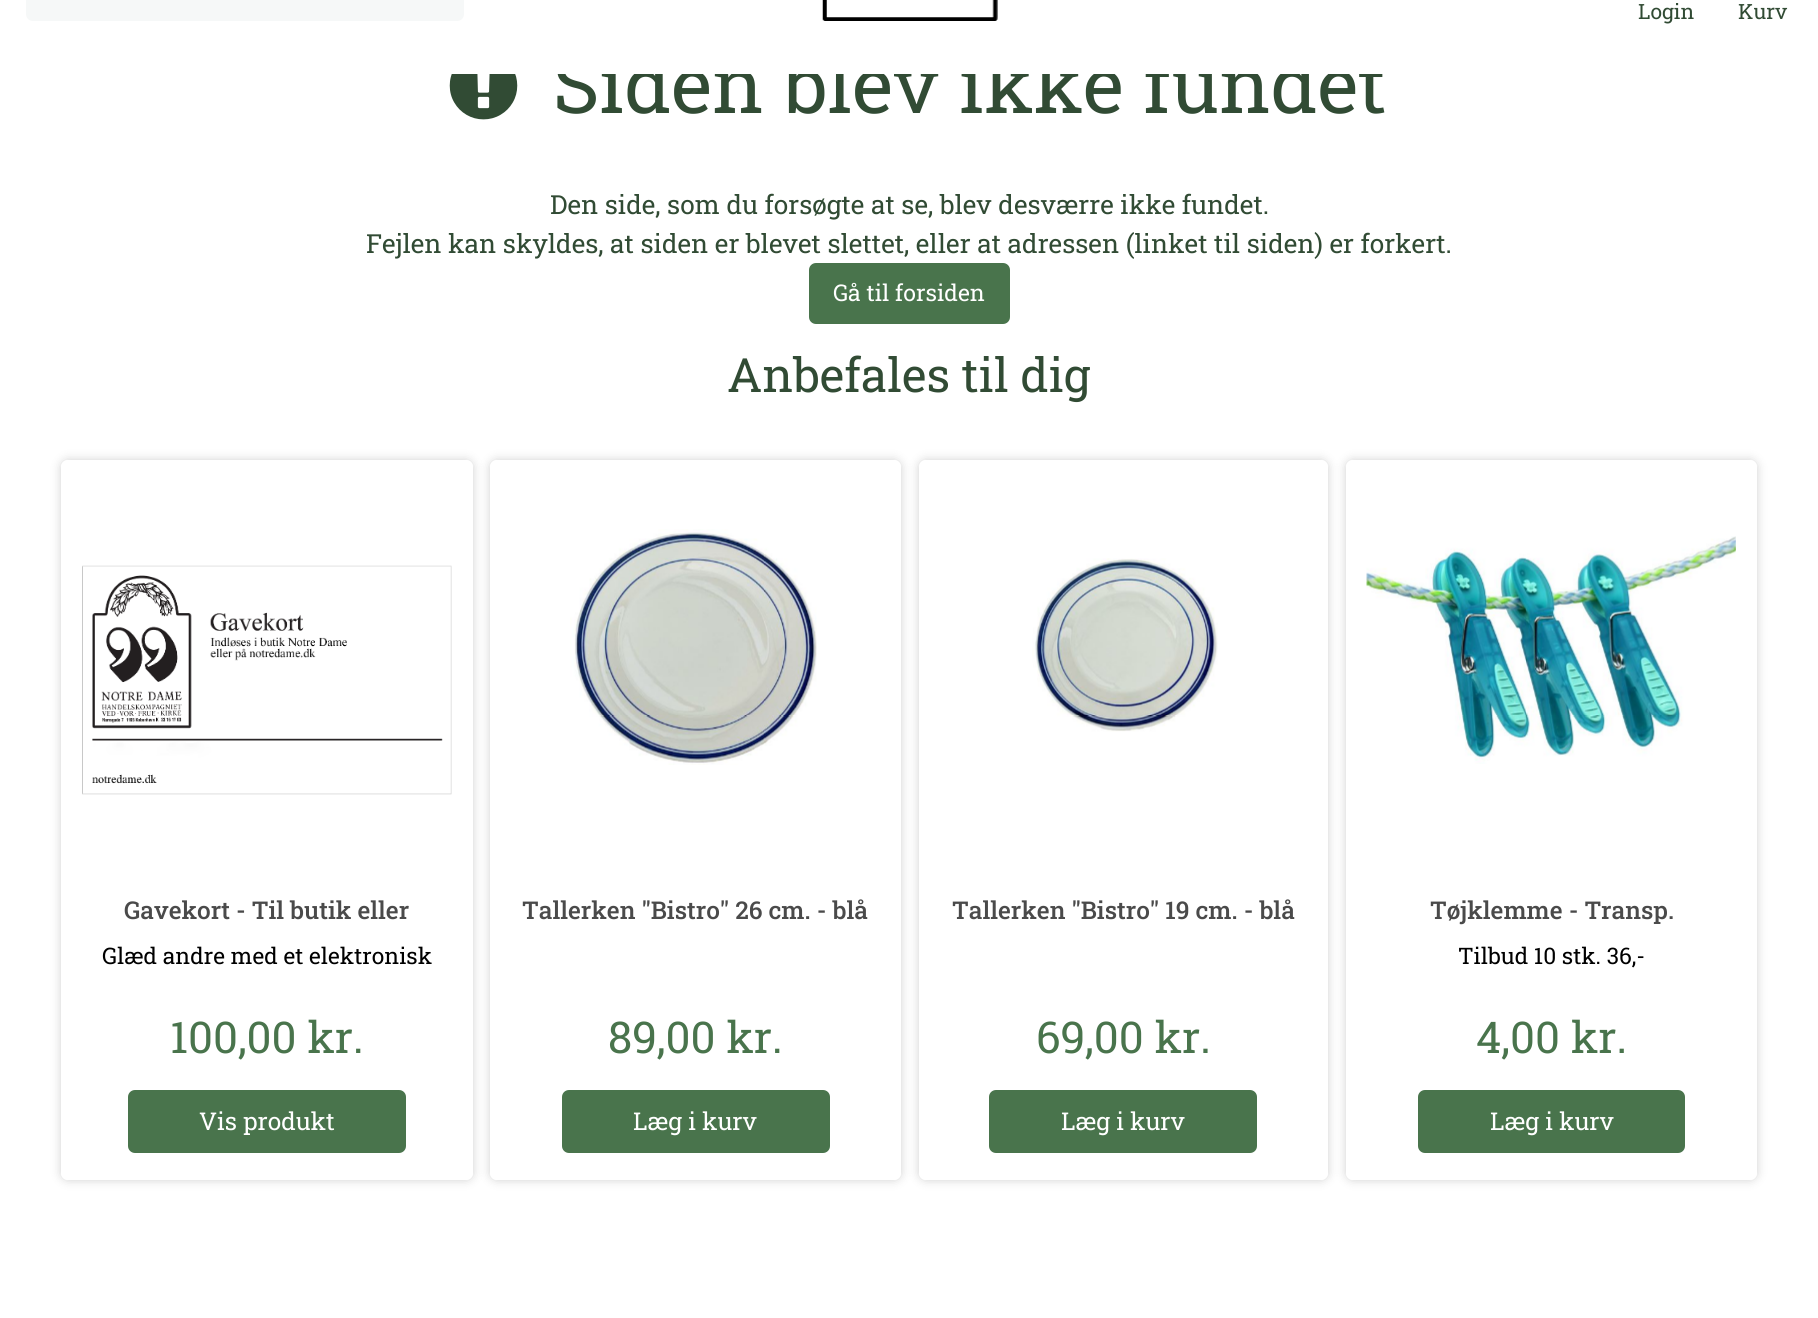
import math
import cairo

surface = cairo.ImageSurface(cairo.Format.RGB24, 1818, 1318)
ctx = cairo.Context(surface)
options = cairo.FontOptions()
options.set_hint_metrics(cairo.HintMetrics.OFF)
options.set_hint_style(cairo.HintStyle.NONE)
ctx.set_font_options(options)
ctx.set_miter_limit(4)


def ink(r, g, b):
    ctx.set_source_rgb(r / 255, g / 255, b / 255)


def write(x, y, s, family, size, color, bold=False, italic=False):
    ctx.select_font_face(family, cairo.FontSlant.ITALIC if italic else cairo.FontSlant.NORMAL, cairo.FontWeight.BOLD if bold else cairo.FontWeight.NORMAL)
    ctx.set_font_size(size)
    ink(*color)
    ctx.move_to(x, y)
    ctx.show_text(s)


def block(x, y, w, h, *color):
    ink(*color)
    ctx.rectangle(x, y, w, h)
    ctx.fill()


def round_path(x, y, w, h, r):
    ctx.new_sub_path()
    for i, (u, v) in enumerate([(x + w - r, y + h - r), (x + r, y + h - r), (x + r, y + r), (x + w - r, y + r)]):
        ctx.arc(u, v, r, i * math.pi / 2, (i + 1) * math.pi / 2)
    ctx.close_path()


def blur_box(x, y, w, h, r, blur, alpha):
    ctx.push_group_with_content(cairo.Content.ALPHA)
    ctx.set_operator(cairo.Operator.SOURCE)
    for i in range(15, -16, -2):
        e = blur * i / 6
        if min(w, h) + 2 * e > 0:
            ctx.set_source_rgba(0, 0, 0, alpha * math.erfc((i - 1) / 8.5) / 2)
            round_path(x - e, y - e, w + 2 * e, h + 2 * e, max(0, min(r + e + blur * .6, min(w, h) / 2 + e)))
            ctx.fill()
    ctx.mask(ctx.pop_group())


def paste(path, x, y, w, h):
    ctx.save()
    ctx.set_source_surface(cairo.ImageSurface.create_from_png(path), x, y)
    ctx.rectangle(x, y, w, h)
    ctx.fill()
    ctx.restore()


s1 = dict(family="Roboto Slab", size=78.75, color=(49, 75, 52))
s2 = dict(family="Roboto Slab", size=21, color=(49, 75, 52))
s3 = dict(family="Roboto Slab", size=26.25, color=(49, 75, 52))
s4 = dict(family="Roboto Slab", size=23, color=(255, 255, 255))
s5 = dict(family="Roboto Slab", size=47.25, color=(49, 75, 52))
s6 = dict(family="Roboto Slab Medium", size=24.5, color=(74, 74, 74))
s7 = dict(family="Roboto Slab", size=22.75, color=(0, 0, 0))
s8 = dict(family="Roboto Slab", size=43.75, color=(73, 116, 76))
s9 = dict(family="Roboto Slab", size=24.5, color=(255, 255, 255))

ink(255, 255, 255)
ctx.paint()
write(553, 113, "Siden blev ikke fundet", **s1)
block(557, 52, 826, 22, 255, 255, 255)
ink(246, 248, 248)
ctx.new_path()
ctx.move_to(33, -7)
ctx.line_to(389, -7)
ctx.line_to(389, 21)
ctx.line_to(33, 21)
ctx.curve_to(29, 21, 26, 18, 26, 14)
ctx.line_to(26, 0)
ctx.curve_to(26, -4, 29, -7, 33, -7)
ctx.close_path()
ctx.fill()
ctx.new_path()
ctx.move_to(389, -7)
ctx.line_to(457, -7)
ctx.curve_to(461, -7, 464, -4, 464, 0)
ctx.line_to(464, 14)
ctx.curve_to(464, 18, 461, 21, 457, 21)
ctx.line_to(389, 21)
ctx.close_path()
ctx.fill()
paste("pic1.png", 822, 0, 176, 21)
write(1638, 19, "Login", **s2)
write(1738, 19, "Kurv", **s2)
paste("pic2.png", 449, 74, 69, 46)
write(550, 214, "Den side, som du forsøgte at se, blev desværre ikke fundet.", **s3)
write(366, 253, "Fejlen kan skyldes, at siden er blevet slettet, eller at adressen (linket til siden) er forkert.", **s3)
ink(73, 116, 76)
round_path(810, 264, 199, 59, 6)
ctx.fill_preserve()
ctx.stroke()
write(833, 301, "Gå til forsiden", **s4)
write(727, 392, "Anbefales til dig", **s5)
ctx.save()
ctx.set_fill_rule(cairo.FillRule.EVEN_ODD)
ctx.new_path()
ctx.move_to(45, 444)
ctx.line_to(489, 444)
ctx.line_to(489, 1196)
ctx.line_to(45, 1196)
ctx.close_path()
ctx.move_to(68, 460)
ctx.line_to(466, 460)
ctx.curve_to(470, 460, 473, 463, 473, 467)
ctx.line_to(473, 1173)
ctx.curve_to(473, 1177, 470, 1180, 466, 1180)
ctx.line_to(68, 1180)
ctx.curve_to(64, 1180, 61, 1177, 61, 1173)
ctx.line_to(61, 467)
ctx.curve_to(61, 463, 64, 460, 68, 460)
ctx.close_path()
ctx.clip()
ink(20, 20, 20)
blur_box(61, 460, 412, 720, 7, 5, 0.2)
ctx.restore()
paste("pic3.png", 82, 565, 370, 230)
write(124, 919, "Gavekort - Til butik eller", **s6)
write(102, 964, "Glæd andre med et elektronisk", **s7)
write(170, 1053, "100,00 kr.", **s8)
round_path(129, 1091, 276, 61, 6)
ctx.fill_preserve()
ctx.stroke()
write(199, 1130, "Vis produkt", **s9)
ctx.save()
ctx.set_fill_rule(cairo.FillRule.EVEN_ODD)
ctx.new_path()
ctx.move_to(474, 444)
ctx.line_to(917, 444)
ctx.line_to(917, 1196)
ctx.line_to(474, 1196)
ctx.close_path()
ctx.move_to(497, 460)
ctx.line_to(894, 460)
ctx.curve_to(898, 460, 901, 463, 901, 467)
ctx.line_to(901, 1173)
ctx.curve_to(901, 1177, 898, 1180, 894, 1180)
ctx.line_to(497, 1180)
ctx.curve_to(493, 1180, 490, 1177, 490, 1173)
ctx.line_to(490, 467)
ctx.curve_to(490, 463, 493, 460, 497, 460)
ctx.close_path()
ctx.clip()
ink(20, 20, 20)
blur_box(490, 460, 411, 720, 7, 5, 0.2)
ctx.restore()
paste("pic4.png", 570, 529, 247, 236)
write(522, 919, "Tallerken \"Bistro\" 26 cm. - blå", **s6)
write(608, 1053, "89,00 kr.", **s8)
round_path(563, 1091, 266, 61, 6)
ctx.fill_preserve()
ctx.stroke()
write(633, 1130, "Læg i kurv", **s9)
ctx.save()
ctx.set_fill_rule(cairo.FillRule.EVEN_ODD)
ctx.new_path()
ctx.move_to(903, 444)
ctx.line_to(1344, 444)
ctx.line_to(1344, 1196)
ctx.line_to(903, 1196)
ctx.close_path()
ctx.move_to(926, 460)
ctx.line_to(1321, 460)
ctx.curve_to(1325, 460, 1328, 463, 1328, 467)
ctx.line_to(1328, 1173)
ctx.curve_to(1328, 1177, 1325, 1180, 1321, 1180)
ctx.line_to(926, 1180)
ctx.curve_to(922, 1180, 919, 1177, 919, 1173)
ctx.line_to(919, 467)
ctx.curve_to(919, 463, 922, 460, 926, 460)
ctx.close_path()
ctx.clip()
ink(20, 20, 20)
blur_box(919, 460, 409, 720, 7, 5, 0.2)
ctx.restore()
paste("pic5.png", 1032, 558, 186, 174)
write(952, 919, "Tallerken \"Bistro\" 19 cm. - blå", **s6)
write(1036, 1053, "69,00 kr.", **s8)
round_path(990, 1091, 266, 61, 6)
ctx.fill_preserve()
ctx.stroke()
write(1061, 1130, "Læg i kurv", **s9)
ctx.save()
ctx.set_fill_rule(cairo.FillRule.EVEN_ODD)
ctx.new_path()
ctx.move_to(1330, 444)
ctx.line_to(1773, 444)
ctx.line_to(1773, 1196)
ctx.line_to(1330, 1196)
ctx.close_path()
ctx.move_to(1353, 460)
ctx.line_to(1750, 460)
ctx.curve_to(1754, 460, 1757, 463, 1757, 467)
ctx.line_to(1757, 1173)
ctx.curve_to(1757, 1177, 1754, 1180, 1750, 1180)
ctx.line_to(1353, 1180)
ctx.curve_to(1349, 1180, 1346, 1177, 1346, 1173)
ctx.line_to(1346, 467)
ctx.curve_to(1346, 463, 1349, 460, 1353, 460)
ctx.close_path()
ctx.clip()
ink(20, 20, 20)
blur_box(1346, 460, 411, 720, 7, 5, 0.2)
ctx.restore()
paste("pic6.png", 1366, 536, 370, 228)
write(1430, 919, "Tøjklemme - Transp.", **s6)
write(1458, 964, "Tilbud 10 stk. 36,-", **s7)
write(1476, 1053, "4,00 kr.", **s8)
round_path(1419, 1091, 265, 61, 6)
ctx.fill_preserve()
ctx.stroke()
write(1490, 1130, "Læg i kurv", **s9)
surface.write_to_png("screenshot.png")
